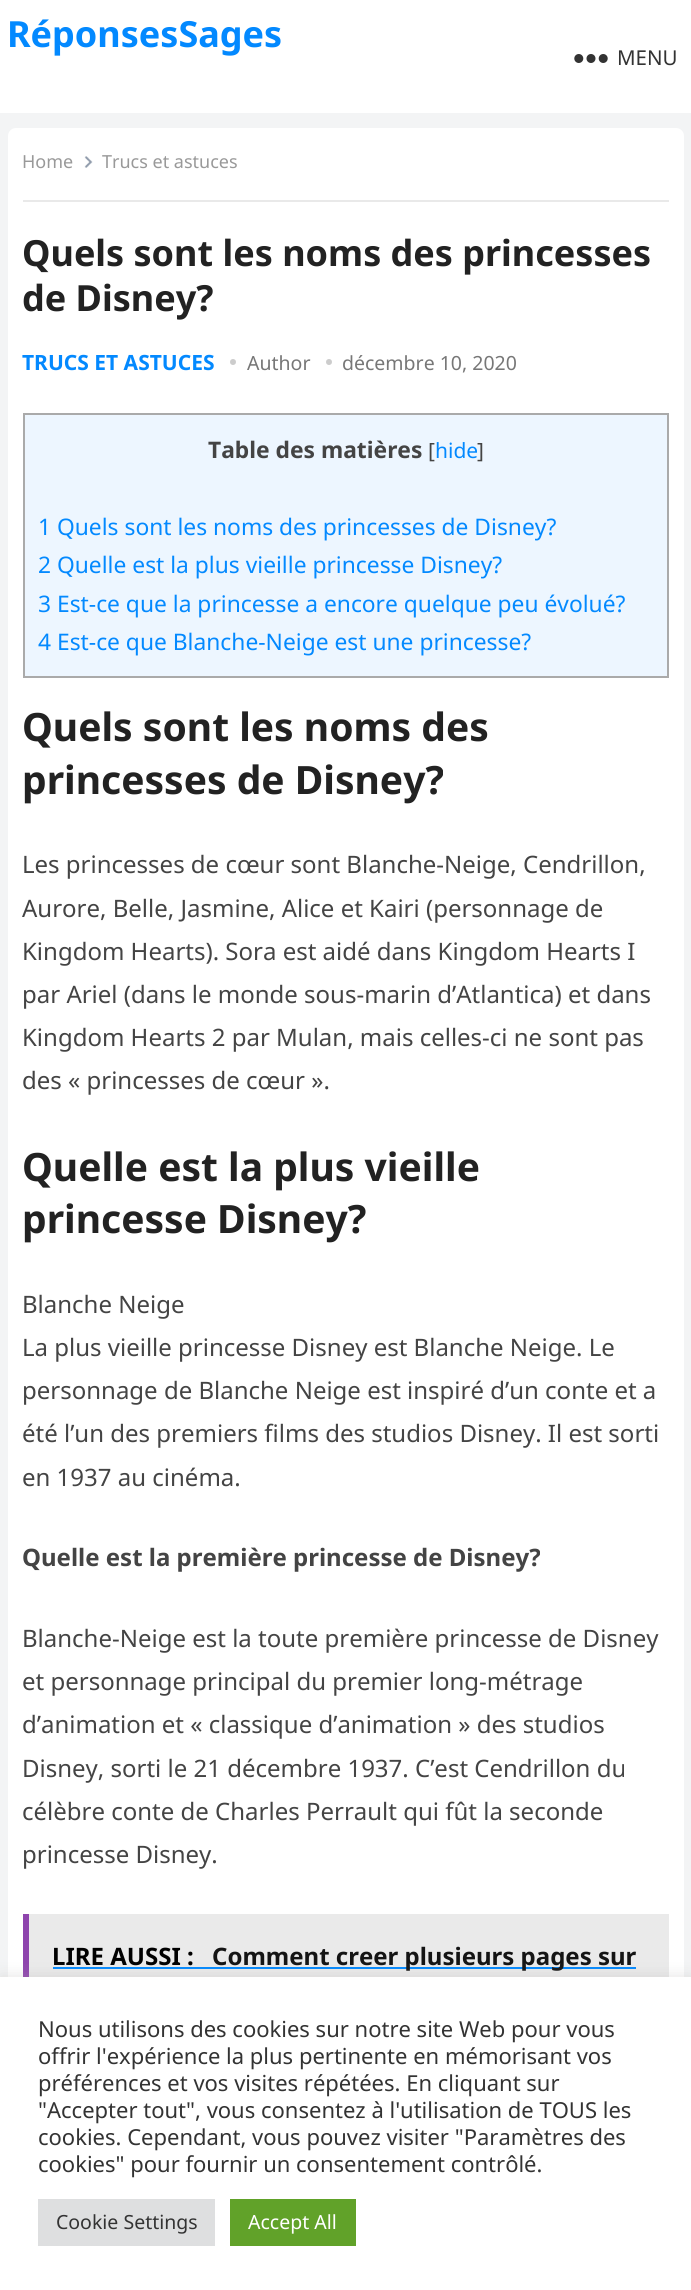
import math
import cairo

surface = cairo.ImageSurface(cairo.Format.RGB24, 691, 2290)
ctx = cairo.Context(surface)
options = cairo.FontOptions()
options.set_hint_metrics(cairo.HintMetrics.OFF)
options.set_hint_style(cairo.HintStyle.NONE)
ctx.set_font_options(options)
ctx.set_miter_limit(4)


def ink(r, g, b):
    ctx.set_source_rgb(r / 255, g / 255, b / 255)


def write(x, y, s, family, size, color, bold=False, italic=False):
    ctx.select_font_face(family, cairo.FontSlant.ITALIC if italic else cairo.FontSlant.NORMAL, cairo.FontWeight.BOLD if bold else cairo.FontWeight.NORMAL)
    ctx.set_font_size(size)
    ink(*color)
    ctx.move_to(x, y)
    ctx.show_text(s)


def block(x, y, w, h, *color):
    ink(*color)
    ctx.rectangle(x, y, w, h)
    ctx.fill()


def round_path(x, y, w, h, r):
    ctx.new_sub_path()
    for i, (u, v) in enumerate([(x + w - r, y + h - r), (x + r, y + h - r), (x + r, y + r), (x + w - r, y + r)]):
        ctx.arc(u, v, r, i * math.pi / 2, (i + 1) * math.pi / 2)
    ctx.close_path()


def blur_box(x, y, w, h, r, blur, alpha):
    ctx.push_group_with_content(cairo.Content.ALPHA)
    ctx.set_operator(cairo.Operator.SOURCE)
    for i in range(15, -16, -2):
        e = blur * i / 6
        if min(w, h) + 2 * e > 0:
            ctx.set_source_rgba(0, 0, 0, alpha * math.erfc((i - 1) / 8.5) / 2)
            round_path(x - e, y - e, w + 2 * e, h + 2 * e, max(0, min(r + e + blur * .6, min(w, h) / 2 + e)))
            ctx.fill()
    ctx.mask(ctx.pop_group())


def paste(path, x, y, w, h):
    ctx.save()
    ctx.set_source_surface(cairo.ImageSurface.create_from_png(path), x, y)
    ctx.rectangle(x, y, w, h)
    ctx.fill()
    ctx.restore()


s1 = dict(family="Noto Sans", size=36, color=(3, 137, 255), bold=True)
s2 = dict(family="Noto Sans", size=20.5, color=(51, 51, 51))
s3 = dict(family="Noto Sans", size=18, color=(153, 153, 153))
s4 = dict(family="Noto Sans", size=36, color=(34, 34, 34), bold=True)
s5 = dict(family="Noto Sans", size=21, color=(3, 137, 255), bold=True)
s6 = dict(family="Noto Sans", size=19.5, color=(119, 119, 119))
s7 = dict(family="Noto Sans", size=22.8, color=(68, 68, 68), bold=True)
s8 = dict(family="Noto Sans", size=21, color=(68, 68, 68))
s9 = dict(family="Noto Sans", size=21, color=(3, 137, 255))
s10 = dict(family="Noto Sans", size=22.8, color=(3, 137, 255))
s11 = dict(family="Noto Sans", size=39, color=(34, 34, 34), bold=True)
s12 = dict(family="Noto Sans", size=24, color=(68, 68, 68))
s13 = dict(family="Noto Sans", size=24, color=(68, 68, 68), bold=True)
s14 = dict(family="Noto Sans", size=24, color=(0, 0, 0), bold=True)
s15 = dict(family="Noto Sans", size=24, color=(20, 20, 20), bold=True)
s16 = dict(family="Noto Sans", size=22, color=(51, 51, 51))
s17 = dict(family="Noto Sans", size=19.5, color=(51, 51, 51))
s18 = dict(family="Noto Sans", size=19.5, color=(255, 255, 255))

ink(243, 244, 245)
ctx.paint()
block(0, 0, 691, 113, 255, 255, 255)
write(7, 47, "RéponsesSages", **s1)
paste("pic1.png", 574, 54, 34, 9)
write(617, 65, "MENU", **s2)
ink(255, 255, 255)
round_path(8, 128, 676, 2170, 8)
ctx.fill()
block(23, 200, 646, 2, 233, 233, 233)
write(22, 168, "Home", **s3)
paste("pic2.png", 84, 156, 9, 12)
write(102, 168, "Trucs et astuces", **s3)
write(22, 266, "Quels sont les noms des princesses", **s4)
write(22, 311, "de Disney?", **s4)
write(22, 370, "TRUCS ET ASTUCES", **s5)
ink(204, 204, 204)
ctx.new_path()
ctx.arc(233, 362, 3, 0, 2 * math.pi)
ctx.fill()
write(247, 370, "Author", **s6)
ink(204, 204, 204)
ctx.new_path()
ctx.arc(329, 362, 3, 0, 2 * math.pi)
ctx.fill()
write(342, 370, "décembre 10, 2020", **s6)
ink(237, 246, 255)
ctx.rectangle(24, 414, 644, 263)
ctx.fill_preserve()
ink(170, 170, 170)
ctx.stroke()
write(208, 458, "Table des matières", **s7)
write(428, 458, "[", **s8)
write(435, 458, "hide", **s9)
write(477, 458, "]", **s8)
write(38, 535, "1 Quels sont les noms des princesses de Disney?", **s10)
write(38, 573, "2 Quelle est la plus vieille princesse Disney?", **s10)
write(38, 612, "3 Est-ce que la princesse a encore quelque peu évolué?", **s10)
write(38, 650, "4 Est-ce que Blanche-Neige est une princesse?", **s10)
write(22, 741, "Quels sont les noms des", **s11)
write(22, 794, "princesses de Disney?", **s11)
write(22, 873, "Les princesses de cœur sont Blanche-Neige, Cendrillon,", **s12)
write(22, 917, "Aurore, Belle, Jasmine, Alice et Kairi (personnage de", **s12)
write(22, 960, "Kingdom Hearts). Sora est aidé dans Kingdom Hearts I", **s12)
write(22, 1003, "par Ariel (dans le monde sous-marin d’Atlantica) et dans", **s12)
write(22, 1046, "Kingdom Hearts 2 par Mulan, mais celles-ci ne sont pas", **s12)
write(22, 1089, "des « princesses de cœur ».", **s12)
write(22, 1181, "Quelle est la plus vieille", **s11)
write(22, 1233, "princesse Disney?", **s11)
write(22, 1313, "Blanche Neige", **s12)
write(22, 1356, "La plus vieille princesse Disney est Blanche Neige. Le", **s12)
write(22, 1399, "personnage de Blanche Neige est inspiré d’un conte et a", **s12)
write(22, 1442, "été l’un des premiers films des studios Disney. Il est sorti", **s12)
write(22, 1486, "en 1937 au cinéma.", **s12)
write(22, 1566, "Quelle est la première princesse de Disney?", **s13)
write(22, 1647, "Blanche-Neige est la toute première princesse de Disney", **s12)
write(22, 1690, "et personnage principal du premier long-métrage", **s12)
write(22, 1733, "d’animation et « classique d’animation » des studios", **s12)
write(22, 1777, "Disney, sorti le 21 décembre 1937. C’est Cendrillon du", **s12)
write(22, 1820, "célèbre conte de Charles Perrault qui fût la seconde", **s12)
write(22, 1863, "princesse Disney.", **s12)
block(29, 1914, 640, 63, 234, 234, 234)
block(23, 1914, 6, 63, 142, 68, 173)
write(52, 1965, "LIRE AUSSI :", **s14)
block(53, 1967, 583, 2, 3, 137, 255)
write(212, 1965, "Comment creer plusieurs pages sur", **s15)
ink(172, 171, 171)
blur_box(0, 1976, 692, 313, 0, 7.5, 0.3)
block(0, 1977, 691, 313, 255, 255, 255)
write(38, 2037, "Nous utilisons des cookies sur notre site Web pour vous", **s16)
write(38, 2064, "offrir l'expérience la plus pertinente en mémorisant vos", **s16)
write(38, 2091, "préférences et vos visites répétées. En cliquant sur", **s16)
write(38, 2118, "\"Accepter tout\", vous consentez à l'utilisation de TOUS les", **s16)
write(38, 2145, "cookies. Cependant, vous pouvez visiter \"Paramètres des", **s16)
write(38, 2172, "cookies\" pour fournir un consentement contrôlé.", **s16)
block(38, 2199, 177, 47, 222, 223, 224)
write(56, 2229, "Cookie Settings", **s17)
block(230, 2199, 126, 47, 97, 162, 41)
write(248, 2229, "Accept All", **s18)
surface.write_to_png("screenshot.png")
